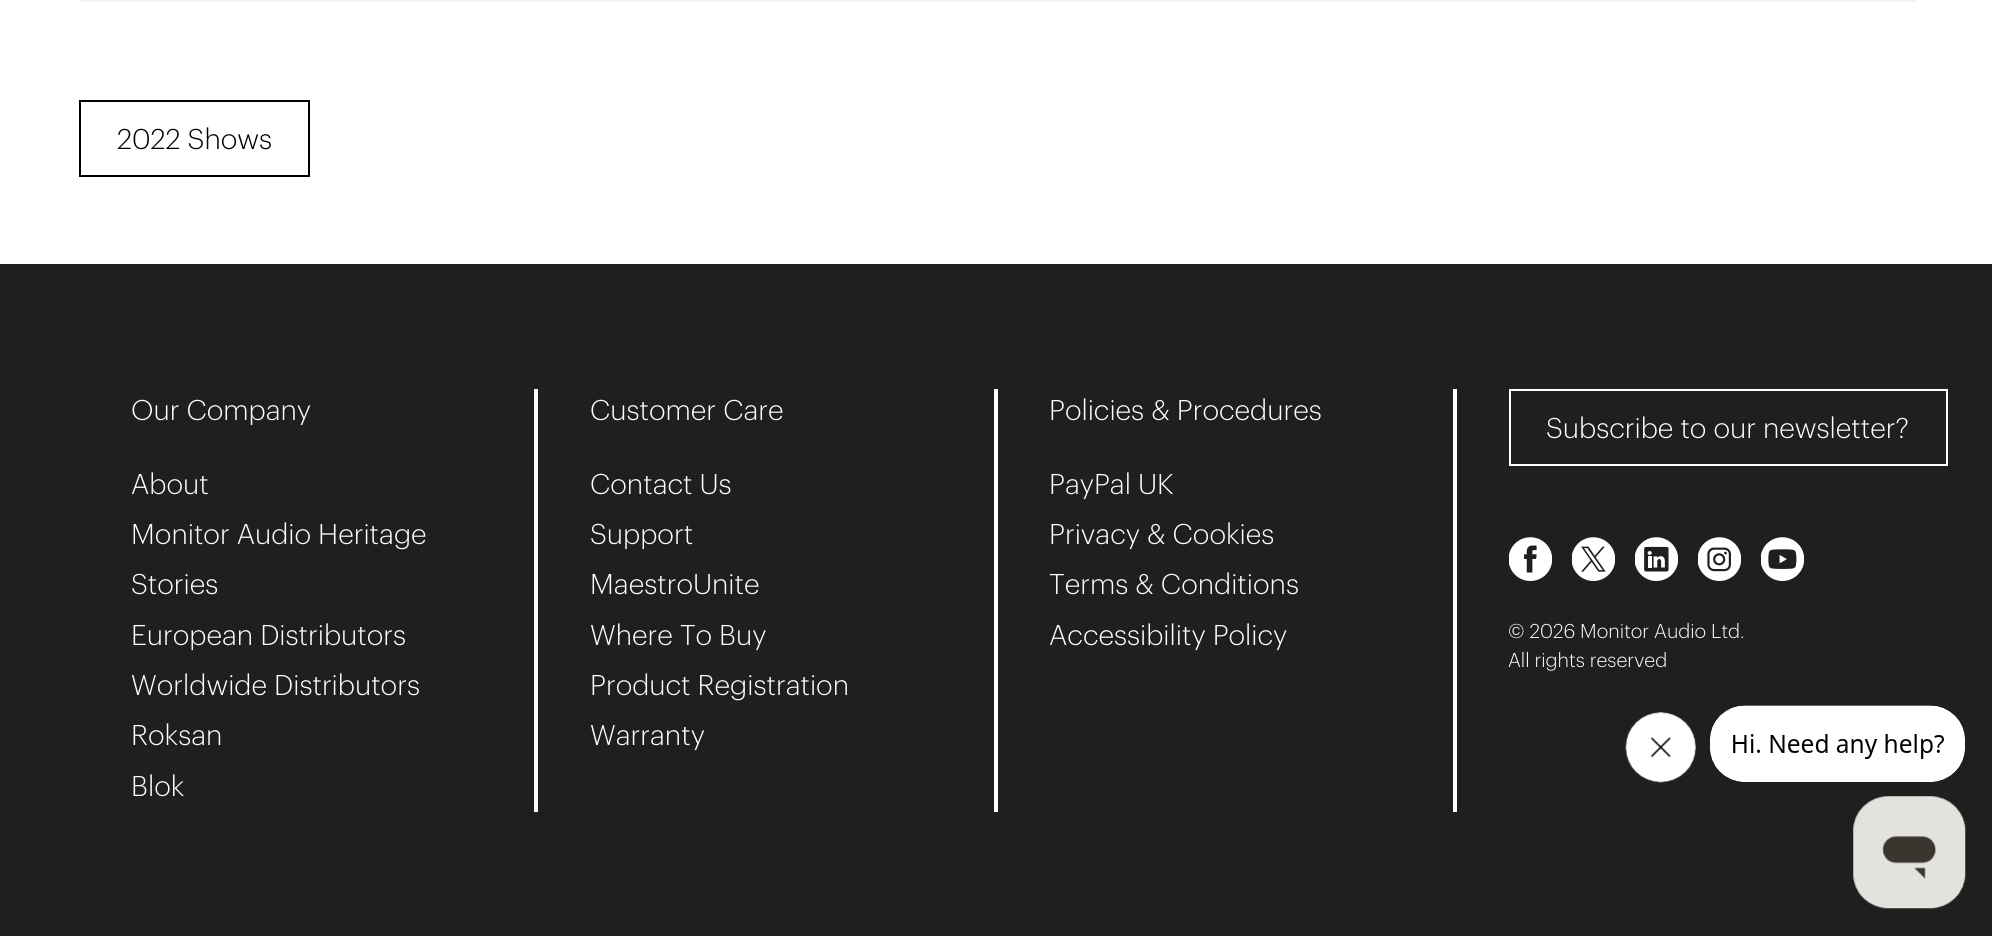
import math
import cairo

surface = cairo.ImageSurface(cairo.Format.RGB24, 1992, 936)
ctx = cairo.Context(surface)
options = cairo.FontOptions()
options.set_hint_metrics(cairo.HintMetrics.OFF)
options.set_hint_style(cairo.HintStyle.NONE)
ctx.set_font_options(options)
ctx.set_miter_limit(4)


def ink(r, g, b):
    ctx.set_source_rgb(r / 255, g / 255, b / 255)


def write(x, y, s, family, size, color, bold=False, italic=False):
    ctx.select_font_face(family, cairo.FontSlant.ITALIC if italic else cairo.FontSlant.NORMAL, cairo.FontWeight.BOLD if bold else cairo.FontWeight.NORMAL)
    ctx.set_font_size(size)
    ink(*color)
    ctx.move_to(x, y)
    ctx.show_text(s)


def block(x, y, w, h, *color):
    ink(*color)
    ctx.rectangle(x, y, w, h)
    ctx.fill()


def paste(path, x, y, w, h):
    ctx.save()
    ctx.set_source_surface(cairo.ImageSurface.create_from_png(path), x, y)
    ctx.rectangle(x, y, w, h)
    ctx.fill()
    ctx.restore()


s1 = dict(family="Graphik Light", size=28, color=(0, 0, 0))
s2 = dict(family="Graphik Light", size=28, color=(255, 255, 255))
s3 = dict(family="Graphik Light", size=19.6, color=(255, 255, 255))

ink(255, 255, 255)
ctx.paint()
block(79, 0, 1836, 2, 242, 242, 242)
ctx.rectangle(80, 101, 229, 75)
ink(0, 0, 0)
ctx.stroke()
write(117, 149, "2022 Shows", **s1)
block(0, 264, 1992, 672, 31, 31, 32)
block(534, 389, 4, 423, 255, 255, 255)
write(131, 420, "Our Company", **s2)
write(131, 494, "About", **s2)
write(131, 544, "Monitor Audio Heritage", **s2)
write(131, 594, "Stories", **s2)
write(131, 645, "European Distributors", **s2)
write(131, 695, "Worldwide Distributors", **s2)
write(131, 745, "Roksan", **s2)
write(131, 796, "Blok", **s2)
block(994, 389, 4, 423, 255, 255, 255)
write(590, 420, "Customer Care", **s2)
write(590, 494, "Contact Us", **s2)
write(590, 544, "Support", **s2)
write(590, 594, "MaestroUnite", **s2)
write(590, 645, "Where To Buy", **s2)
write(590, 695, "Product Registration", **s2)
write(590, 745, "Warranty", **s2)
block(1453, 389, 4, 423, 255, 255, 255)
write(1049, 420, "Policies & Procedures", **s2)
write(1049, 494, "PayPal UK", **s2)
write(1049, 544, "Privacy & Cookies", **s2)
write(1049, 594, "Terms & Conditions", **s2)
write(1049, 645, "Accessibility Policy", **s2)
ctx.rectangle(1510, 390, 437, 75)
ctx.stroke()
write(1546, 438, "Subscribe to our newsletter?", **s2)
paste("pic1.png", 1509, 537, 43, 44)
paste("pic2.png", 1572, 537, 43, 44)
paste("pic3.png", 1635, 537, 43, 44)
paste("pic4.png", 1698, 537, 43, 44)
paste("pic5.png", 1761, 537, 43, 44)
write(1508, 638, "© 2026 Monitor Audio Ltd.", **s3)
write(1508, 667, "All rights reserved", **s3)
paste("pic6.png", 1625, 712, 71, 71)
paste("pic7.png", 1710, 705, 255, 77)
paste("pic8.png", 1853, 796, 113, 113)
surface.write_to_png("screenshot.png")
